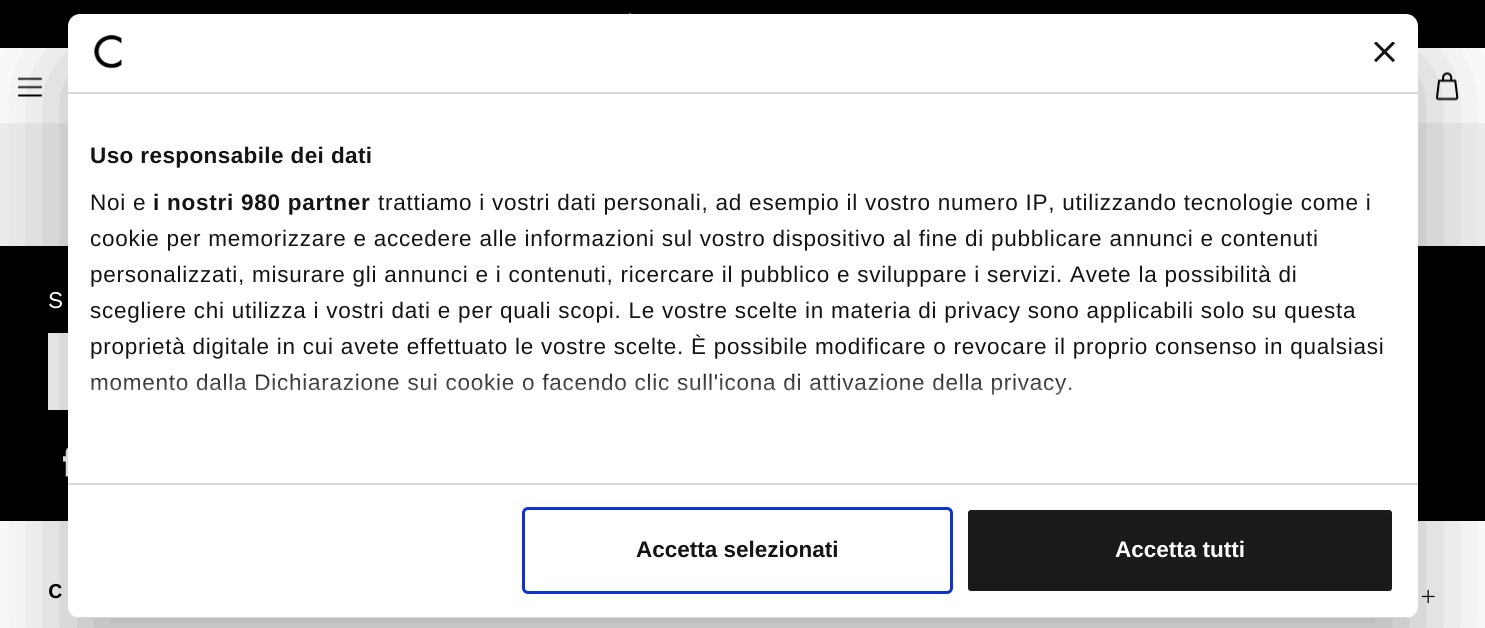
import math
import cairo

surface = cairo.ImageSurface(cairo.Format.RGB24, 1485, 628)
ctx = cairo.Context(surface)
options = cairo.FontOptions()
options.set_hint_metrics(cairo.HintMetrics.OFF)
options.set_hint_style(cairo.HintStyle.NONE)
ctx.set_font_options(options)
ctx.set_miter_limit(4)


def ink(r, g, b):
    ctx.set_source_rgb(r / 255, g / 255, b / 255)


def write(x, y, s, family, size, color, bold=False, italic=False):
    ctx.select_font_face(family, cairo.FontSlant.ITALIC if italic else cairo.FontSlant.NORMAL, cairo.FontWeight.BOLD if bold else cairo.FontWeight.NORMAL)
    ctx.set_font_size(size)
    ink(*color)
    ctx.move_to(x, y)
    ctx.show_text(s)


def write_spaced(x, y, s, letter, word):
    ctx.move_to(x, y)
    for ch in s:
        ctx.show_text(ch)
        ctx.rel_move_to(letter + word * (ch == ' '), 0)


def block(x, y, w, h, *color):
    ink(*color)
    ctx.rectangle(x, y, w, h)
    ctx.fill()


def round_path(x, y, w, h, r):
    ctx.new_sub_path()
    for i, (u, v) in enumerate([(x + w - r, y + h - r), (x + r, y + h - r), (x + r, y + r), (x + w - r, y + r)]):
        ctx.arc(u, v, r, i * math.pi / 2, (i + 1) * math.pi / 2)
    ctx.close_path()


def blur_box(x, y, w, h, r, blur, alpha):
    ctx.push_group_with_content(cairo.Content.ALPHA)
    ctx.set_operator(cairo.Operator.SOURCE)
    for i in range(15, -16, -2):
        e = blur * i / 6
        if min(w, h) + 2 * e > 0:
            ctx.set_source_rgba(0, 0, 0, alpha * math.erfc((i - 1) / 8.5) / 2)
            round_path(x - e, y - e, w + 2 * e, h + 2 * e, max(0, min(r + e + blur * .6, min(w, h) / 2 + e)))
            ctx.fill()
    ctx.mask(ctx.pop_group())


def paste(path, x, y, w, h):
    ctx.save()
    ctx.set_source_surface(cairo.ImageSurface.create_from_png(path), x, y)
    ctx.rectangle(x, y, w, h)
    ctx.fill()
    ctx.restore()


s1 = dict(family="Liberation Sans", size=22.5, color=(20, 20, 20), bold=True)
s2 = dict(family="Liberation Sans", size=22.5, color=(255, 255, 255), bold=True)
s3 = dict(family="Work Sans", size=24, color=(255, 255, 255))

ink(255, 255, 255)
ctx.paint()
block(0, 0, 1485, 48, 0, 0, 0)
paste("pic3.png", 629, 13, 3, 1)
paste("pic4.png", 18, 77, 24, 20)
paste("pic5.png", 1436, 72, 23, 29)
block(0, 123, 1485, 123, 242, 242, 242)
block(0, 246, 1485, 275, 0, 0, 0)
block(48, 333, 20, 77, 255, 255, 255)
paste("pic6.png", 63, 447, 5, 30)
ink(0, 0, 0)
blur_box(68, 62, 1350, 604, 12, 51, 0.3)
ink(255, 255, 255)
round_path(68, 14, 1350, 604, 12)
ctx.fill()
block(68, 92, 1350, 2, 214, 214, 214)
paste("pic1.png", 93, 35, 29, 34)
paste("pic2.png", 1374, 42, 21, 21)
block(68, 483, 1350, 2, 214, 214, 214)
ctx.select_font_face("Liberation Sans", cairo.FontSlant.NORMAL, cairo.FontWeight.BOLD)
ctx.set_font_size(22.5)
ink(20, 20, 20)
write_spaced(90, 163, "Uso responsabile dei dati", 0.4, 0)
ctx.select_font_face("Liberation Sans")
write_spaced(90, 210, "Noi e", 0.75, 0)
ctx.select_font_face("Liberation Sans", cairo.FontSlant.NORMAL, cairo.FontWeight.BOLD)
write_spaced(153, 210, "i nostri 980 partner", 0.75, 0)
ctx.select_font_face("Liberation Sans")
write_spaced(378, 210, "trattiamo i vostri dati personali, ad esempio il vostro numero IP, utilizzando tecnologie come i", 0.75, 0)
write_spaced(90, 246, "cookie per memorizzare e accedere alle informazioni sul vostro dispositivo al fine di pubblicare annunci e contenuti", 0.75, 0)
write_spaced(90, 282, "personalizzati, misurare gli annunci e i contenuti, ricercare il pubblico e sviluppare i servizi. Avete la possibilità di", 0.75, 0)
write_spaced(90, 318, "scegliere chi utilizza i vostri dati e per quali scopi. Le vostre scelte in materia di privacy sono applicabili solo su questa", 0.75, 0)
write_spaced(90, 354, "proprietà digitale in cui avete effettuato le vostre scelte. È possibile modificare o revocare il proprio consenso in qualsiasi", 0.75, 0)
write_spaced(90, 390, "momento dalla Dichiarazione sui cookie o facendo clic sull'icona di attivazione della privacy.", 0.75, 0)
gradient = cairo.LinearGradient(733, 482, 733, 370)
gradient.add_color_stop_rgba(0, 1, 1, 1, 1)
gradient.add_color_stop_rgba(0.5, 1, 1, 1, 0.8)
gradient.add_color_stop_rgba(1, 1, 1, 1, 0)
ctx.set_source(gradient)
ctx.rectangle(91, 373, 981, 22)
ctx.fill()
ctx.save()
round_path(68, 14, 1350, 604, 12)
ctx.clip()
block(68, 617, 1350, 1, 214, 214, 214)
ctx.restore()
round_path(523.5, 508.5, 428, 84, 4.5)
ink(16, 50, 207)
ctx.set_line_width(3)
ctx.stroke()
write(636, 557, "Accetta selezionati", **s1)
ink(26, 26, 28)
round_path(966.5, 508.5, 427, 84, 4.5)
ctx.fill_preserve()
ink(255, 255, 255)
ctx.stroke()
write(1115, 557, "Accetta tutti", **s2)
write(48, 308, "S", **s3)
ctx.select_font_face("Work Sans SemiBold")
ctx.set_font_size(21)
ink(0, 0, 0)
write_spaced(48, 598, "C", 1, 0)
ctx.select_font_face("Work Sans Light")
ctx.set_font_size(27)
write_spaced(1420, 605, "+", 1, 0)
surface.write_to_png("screenshot.png")
